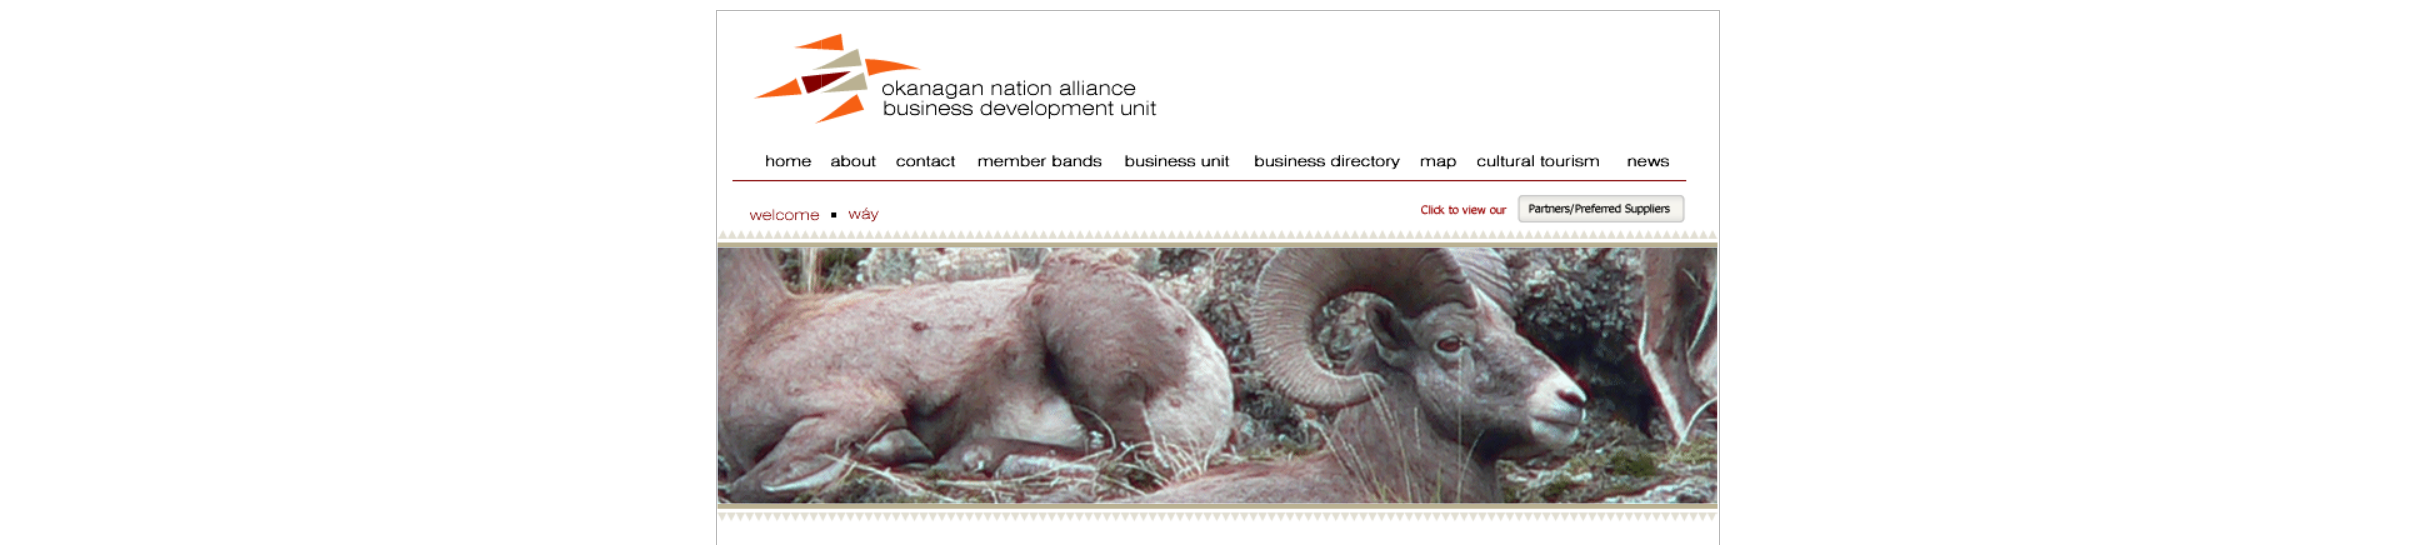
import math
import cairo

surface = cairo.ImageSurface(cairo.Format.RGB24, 2435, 545)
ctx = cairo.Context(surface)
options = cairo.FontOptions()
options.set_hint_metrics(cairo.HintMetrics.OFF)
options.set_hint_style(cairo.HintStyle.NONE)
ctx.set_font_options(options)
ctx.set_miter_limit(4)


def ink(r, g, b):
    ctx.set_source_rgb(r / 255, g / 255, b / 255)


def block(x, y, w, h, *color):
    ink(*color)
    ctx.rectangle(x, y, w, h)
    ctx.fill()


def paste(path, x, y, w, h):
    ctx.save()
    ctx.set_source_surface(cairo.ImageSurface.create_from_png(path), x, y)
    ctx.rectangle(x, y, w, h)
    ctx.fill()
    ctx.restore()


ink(255, 255, 255)
ctx.paint()
ctx.rectangle(716.5, 10.5, 1003, 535)
ink(182, 182, 182)
ctx.set_line_width(1)
ctx.stroke()
paste("pic1.png", 753, 39, 67, 85)
paste("pic3.png", 820, 39, 2, 84)
paste("pic2.png", 821, 33, 336, 90)
paste("pic4.png", 766, 154, 46, 14)
paste("pic5.png", 831, 154, 46, 14)
paste("pic6.png", 896, 155, 60, 13)
paste("pic7.png", 977, 154, 126, 14)
paste("pic8.png", 1124, 154, 107, 14)
paste("pic9.png", 1254, 154, 147, 16)
paste("pic10.png", 1420, 157, 37, 13)
paste("pic11.png", 1476, 154, 123, 14)
paste("pic12.png", 1627, 157, 43, 11)
paste("pic13.png", 717, 179, 1001, 69)
paste("pic16.png", 717, 503, 1001, 19)
paste("pic14.png", 717, 247, 1001, 257)
block(718, 248, 1000, 256, 255, 255, 255)
paste("pic15.png", 717, 247, 1001, 257)
surface.write_to_png("screenshot.png")
